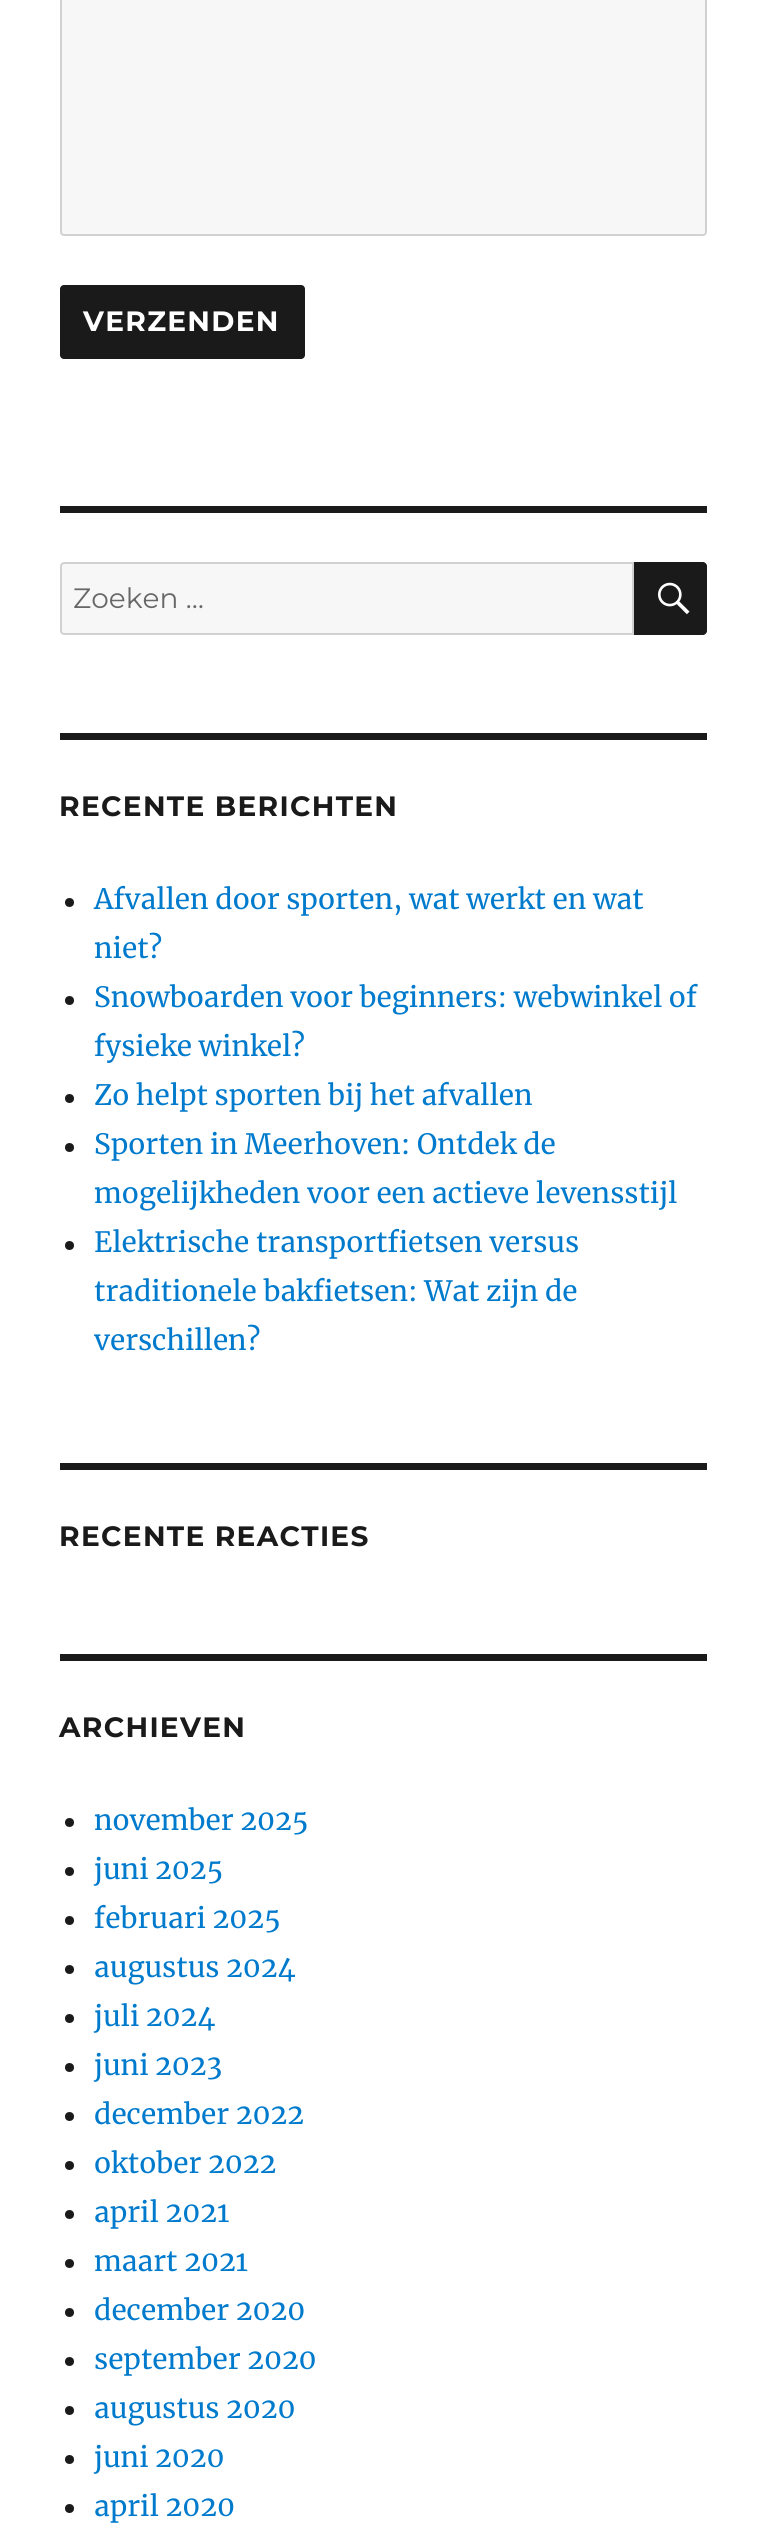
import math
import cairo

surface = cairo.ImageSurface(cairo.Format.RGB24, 765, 2535)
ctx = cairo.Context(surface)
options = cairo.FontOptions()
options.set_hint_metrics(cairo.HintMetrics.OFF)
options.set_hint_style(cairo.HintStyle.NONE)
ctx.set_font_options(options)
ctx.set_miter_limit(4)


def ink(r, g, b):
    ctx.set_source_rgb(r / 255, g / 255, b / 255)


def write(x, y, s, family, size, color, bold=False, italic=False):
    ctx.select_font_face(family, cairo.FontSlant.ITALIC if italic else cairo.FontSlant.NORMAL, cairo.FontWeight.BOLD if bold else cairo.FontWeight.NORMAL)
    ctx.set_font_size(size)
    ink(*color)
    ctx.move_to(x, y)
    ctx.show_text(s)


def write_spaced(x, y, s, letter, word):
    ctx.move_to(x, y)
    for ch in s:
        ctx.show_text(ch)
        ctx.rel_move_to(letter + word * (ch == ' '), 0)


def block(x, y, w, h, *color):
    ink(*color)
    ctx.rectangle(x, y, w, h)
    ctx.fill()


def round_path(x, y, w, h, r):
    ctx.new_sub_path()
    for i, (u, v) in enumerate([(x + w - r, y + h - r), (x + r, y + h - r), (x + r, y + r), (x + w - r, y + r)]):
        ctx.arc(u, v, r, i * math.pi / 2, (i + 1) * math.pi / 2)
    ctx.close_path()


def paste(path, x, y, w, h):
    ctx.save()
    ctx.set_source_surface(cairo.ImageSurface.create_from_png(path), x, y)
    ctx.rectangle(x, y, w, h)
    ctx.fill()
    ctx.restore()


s1 = dict(family="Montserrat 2 Thin", size=28, color=(104, 104, 104))
s2 = dict(family="Merriweather", size=28, color=(0, 122, 204))

ink(255, 255, 255)
ctx.paint()
ink(247, 247, 247)
round_path(61, -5, 645, 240, 3)
ctx.fill_preserve()
ink(209, 209, 209)
ctx.stroke()
ink(26, 26, 26)
round_path(60, 285, 245, 74, 4)
ctx.fill()
ctx.select_font_face("Montserrat Thin")
ctx.set_font_size(28)
ink(255, 255, 255)
write_spaced(83, 331, "VERZENDEN", 1.3, 0)
block(60, 506, 647, 7, 26, 26, 26)
ink(247, 247, 247)
ctx.new_path()
ctx.move_to(64, 563)
ctx.line_to(633, 563)
ctx.line_to(633, 634)
ctx.line_to(64, 634)
ctx.curve_to(62.5, 634, 61, 632.5, 61, 631)
ctx.line_to(61, 566)
ctx.curve_to(61, 564.5, 62.5, 563, 64, 563)
ctx.close_path()
ctx.fill_preserve()
ink(209, 209, 209)
ctx.stroke()
write(73, 608, "Zoeken …", **s1)
ink(26, 26, 26)
ctx.new_path()
ctx.move_to(634, 562)
ctx.line_to(703, 562)
ctx.curve_to(705, 562, 707, 564, 707, 566)
ctx.line_to(707, 631)
ctx.curve_to(707, 633, 705, 635, 703, 635)
ctx.line_to(634, 635)
ctx.close_path()
ctx.fill()
paste("pic1.png", 658, 582, 32, 33)
block(60, 733, 647, 7, 26, 26, 26)
ctx.select_font_face("Montserrat Thin")
write_spaced(59, 816, "RECENTE BERICHTEN", 1.3, 0)
ctx.new_path()
ctx.arc(69.5, 902.5, 4.5, 0, 2 * math.pi)
ctx.fill()
write(94, 909, "Afvallen door sporten, wat werkt en wat", **s2)
write(94, 958, "niet?", **s2)
ink(26, 26, 26)
ctx.new_path()
ctx.arc(69.5, 1000.5, 4.5, 0, 2 * math.pi)
ctx.fill()
write(94, 1007, "Snowboarden voor beginners: webwinkel of", **s2)
write(94, 1056, "fysieke winkel?", **s2)
ink(26, 26, 26)
ctx.new_path()
ctx.arc(69.5, 1098.5, 4.5, 0, 2 * math.pi)
ctx.fill()
write(94, 1105, "Zo helpt sporten bij het afvallen", **s2)
ink(26, 26, 26)
ctx.new_path()
ctx.arc(69.5, 1147.5, 4.5, 0, 2 * math.pi)
ctx.fill()
write(94, 1154, "Sporten in Meerhoven: Ontdek de", **s2)
write(94, 1203, "mogelijkheden voor een actieve levensstijl", **s2)
ink(26, 26, 26)
ctx.new_path()
ctx.arc(69.5, 1245.5, 4.5, 0, 2 * math.pi)
ctx.fill()
write(94, 1252, "Elektrische transportfietsen versus", **s2)
write(94, 1301, "traditionele bakfietsen: Wat zijn de", **s2)
write(94, 1350, "verschillen?", **s2)
block(60, 1463, 647, 7, 26, 26, 26)
ctx.select_font_face("Montserrat Thin")
write_spaced(59, 1546, "RECENTE REACTIES", 1.3, 0)
block(60, 1654, 647, 7, 26, 26, 26)
write_spaced(59, 1737, "ARCHIEVEN", 1.3, 0)
ctx.new_path()
ctx.arc(69.5, 1822.5, 4.5, 0, 2 * math.pi)
ctx.fill()
write(94, 1830, "november 2025", **s2)
ink(26, 26, 26)
ctx.new_path()
ctx.arc(69.5, 1871.5, 4.5, 0, 2 * math.pi)
ctx.fill()
write(94, 1879, "juni 2025", **s2)
ink(26, 26, 26)
ctx.new_path()
ctx.arc(69.5, 1920.5, 4.5, 0, 2 * math.pi)
ctx.fill()
write(94, 1928, "februari 2025", **s2)
ink(26, 26, 26)
ctx.new_path()
ctx.arc(69.5, 1969.5, 4.5, 0, 2 * math.pi)
ctx.fill()
write(94, 1977, "augustus 2024", **s2)
ink(26, 26, 26)
ctx.new_path()
ctx.arc(69.5, 2018.5, 4.5, 0, 2 * math.pi)
ctx.fill()
write(94, 2026, "juli 2024", **s2)
ink(26, 26, 26)
ctx.new_path()
ctx.arc(69.5, 2067.5, 4.5, 0, 2 * math.pi)
ctx.fill()
write(94, 2075, "juni 2023", **s2)
ink(26, 26, 26)
ctx.new_path()
ctx.arc(69.5, 2116.5, 4.5, 0, 2 * math.pi)
ctx.fill()
write(94, 2124, "december 2022", **s2)
ink(26, 26, 26)
ctx.new_path()
ctx.arc(69.5, 2165.5, 4.5, 0, 2 * math.pi)
ctx.fill()
write(94, 2173, "oktober 2022", **s2)
ink(26, 26, 26)
ctx.new_path()
ctx.arc(69.5, 2214.5, 4.5, 0, 2 * math.pi)
ctx.fill()
write(94, 2222, "april 2021", **s2)
ink(26, 26, 26)
ctx.new_path()
ctx.arc(69.5, 2263.5, 4.5, 0, 2 * math.pi)
ctx.fill()
write(94, 2271, "maart 2021", **s2)
ink(26, 26, 26)
ctx.new_path()
ctx.arc(69.5, 2312.5, 4.5, 0, 2 * math.pi)
ctx.fill()
write(94, 2320, "december 2020", **s2)
ink(26, 26, 26)
ctx.new_path()
ctx.arc(69.5, 2361.5, 4.5, 0, 2 * math.pi)
ctx.fill()
write(94, 2369, "september 2020", **s2)
ink(26, 26, 26)
ctx.new_path()
ctx.arc(69.5, 2410.5, 4.5, 0, 2 * math.pi)
ctx.fill()
write(94, 2418, "augustus 2020", **s2)
ink(26, 26, 26)
ctx.new_path()
ctx.arc(69.5, 2459.5, 4.5, 0, 2 * math.pi)
ctx.fill()
write(94, 2467, "juni 2020", **s2)
ink(26, 26, 26)
ctx.new_path()
ctx.arc(69.5, 2508.5, 4.5, 0, 2 * math.pi)
ctx.fill()
write(94, 2516, "april 2020", **s2)
surface.write_to_png("screenshot.png")
